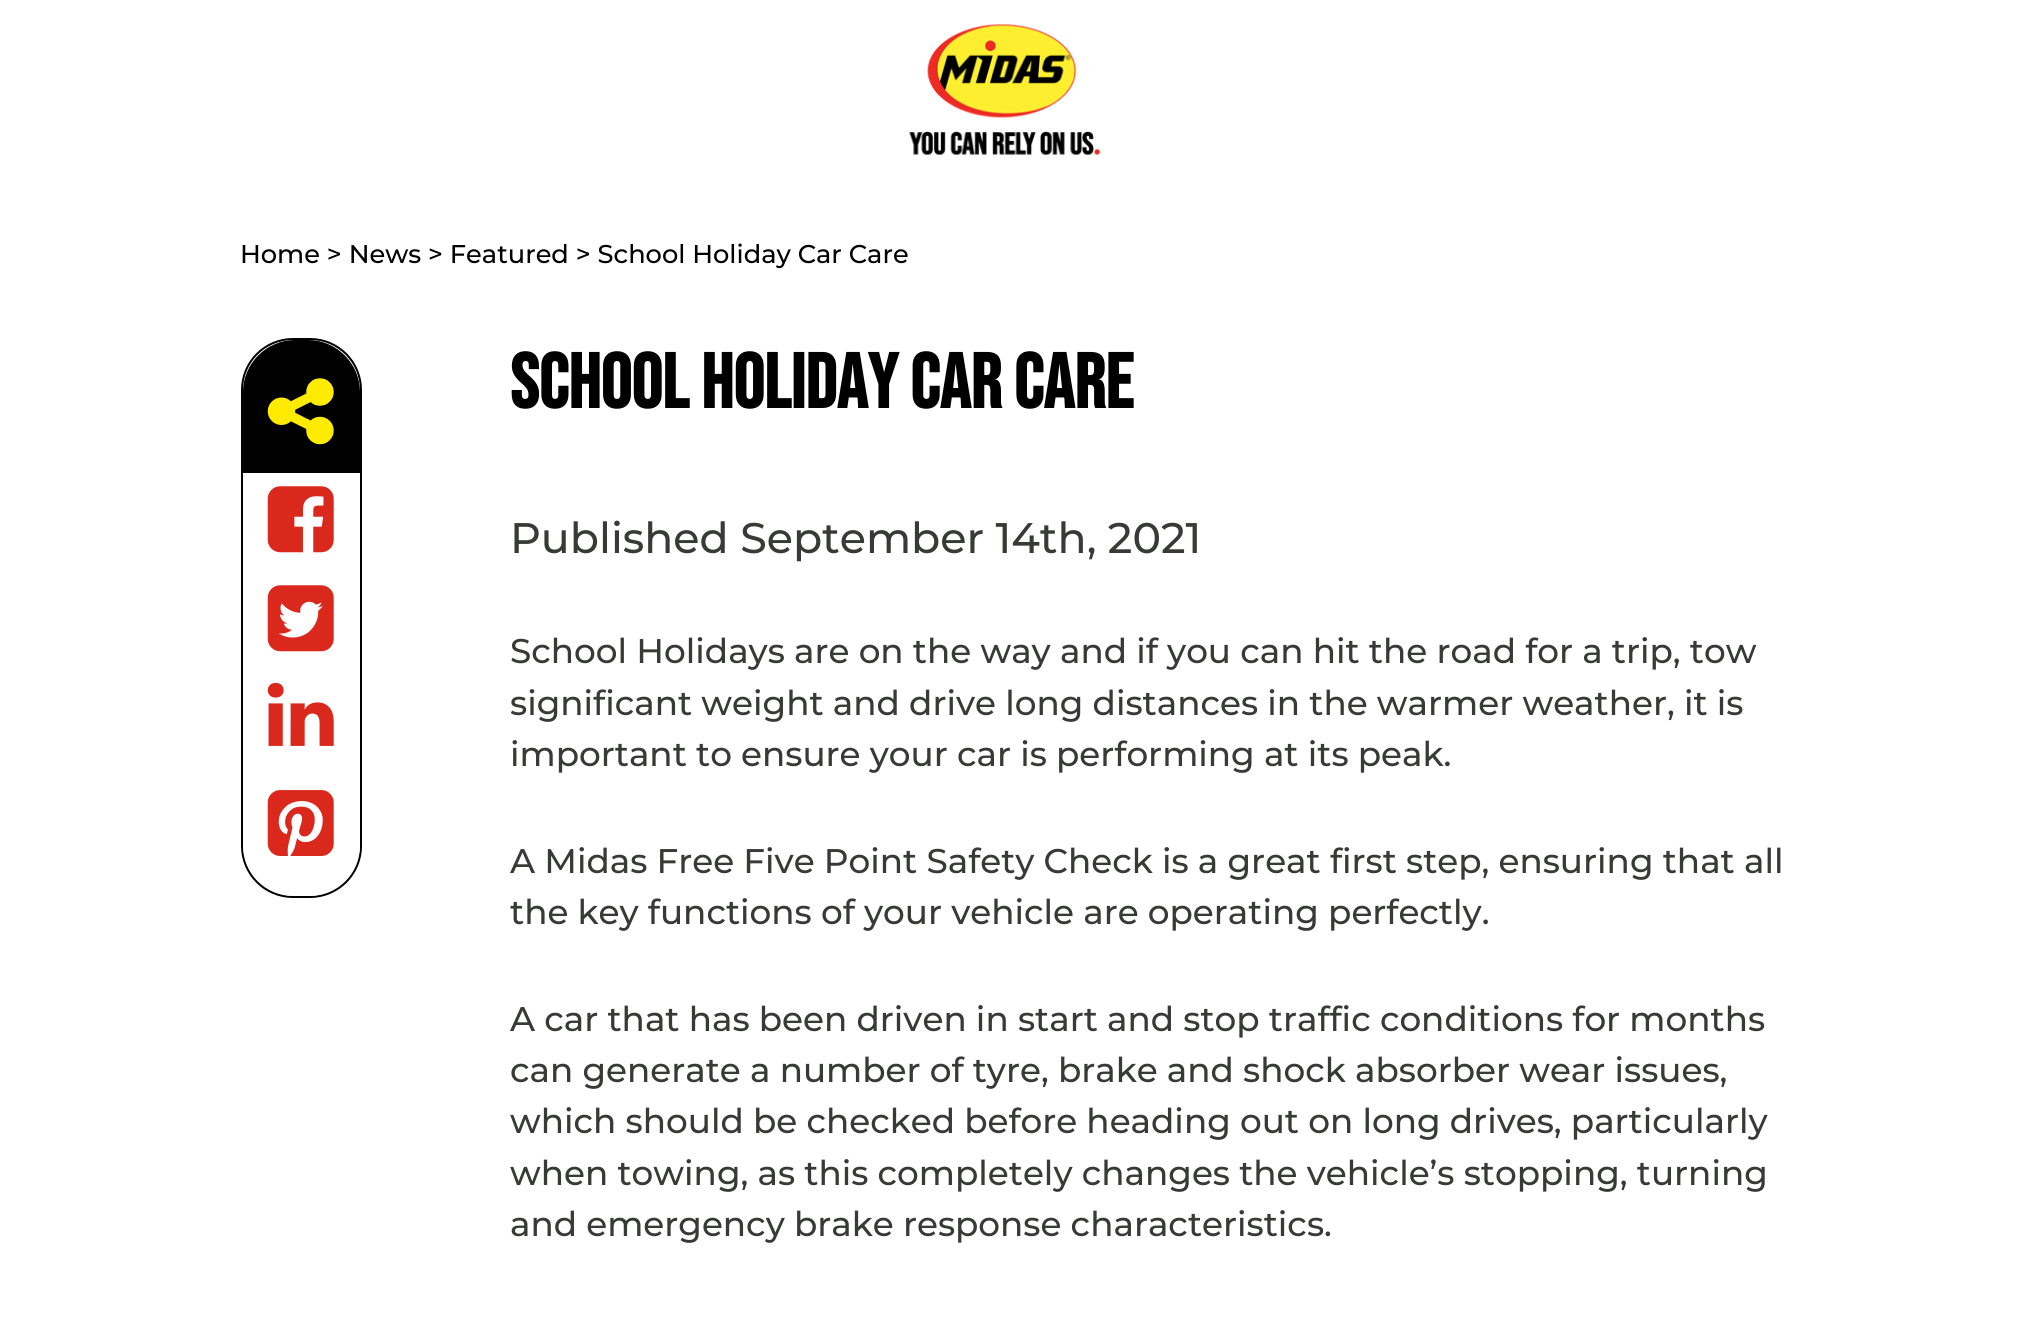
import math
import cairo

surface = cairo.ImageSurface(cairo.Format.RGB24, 2031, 1330)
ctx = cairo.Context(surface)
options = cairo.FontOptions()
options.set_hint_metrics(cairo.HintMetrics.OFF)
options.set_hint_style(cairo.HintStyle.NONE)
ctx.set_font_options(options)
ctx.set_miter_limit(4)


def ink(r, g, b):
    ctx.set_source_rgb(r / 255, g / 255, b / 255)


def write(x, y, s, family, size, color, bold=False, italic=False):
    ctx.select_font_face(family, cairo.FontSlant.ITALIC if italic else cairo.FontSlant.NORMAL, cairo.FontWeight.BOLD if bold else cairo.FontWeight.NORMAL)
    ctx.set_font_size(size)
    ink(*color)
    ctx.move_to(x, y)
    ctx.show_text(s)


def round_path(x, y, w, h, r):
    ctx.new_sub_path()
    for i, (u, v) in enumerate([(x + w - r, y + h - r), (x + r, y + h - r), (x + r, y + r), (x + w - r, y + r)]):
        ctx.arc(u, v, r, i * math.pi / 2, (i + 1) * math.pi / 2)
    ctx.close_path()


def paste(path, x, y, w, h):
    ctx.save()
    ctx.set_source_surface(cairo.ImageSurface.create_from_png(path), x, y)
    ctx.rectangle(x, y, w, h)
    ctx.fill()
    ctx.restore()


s1 = dict(family="Montserrat Thin", size=25.65, color=(0, 0, 0))
s2 = dict(family="Bebas Neue", size=77, color=(0, 0, 0), bold=True)
s3 = dict(family="Montserrat Thin", size=42.75, color=(55, 58, 54))
s4 = dict(family="Montserrat Thin", size=34.2, color=(55, 58, 54))

ink(255, 255, 255)
ctx.paint()
paste("pic1.png", 909, 24, 191, 131)
write(240, 263, "Home > News > Featured > School Holiday Car Care", **s1)
round_path(242, 339, 119, 558, 51)
ctx.stroke()
ctx.save()
round_path(243, 340, 117, 556, 50)
ctx.clip()
ctx.new_path()
ctx.move_to(295, 340)
ctx.line_to(308, 340)
ctx.curve_to(336.5, 340, 360, 363.5, 360, 392)
ctx.line_to(360, 473)
ctx.line_to(243, 473)
ctx.line_to(243, 392)
ctx.curve_to(243, 363.5, 266.5, 340, 295, 340)
ctx.close_path()
ctx.fill()
ctx.restore()
paste("pic2.png", 267, 378, 67, 67)
paste("pic3.png", 267, 486, 67, 67)
paste("pic4.png", 267, 585, 67, 67)
paste("pic5.png", 267, 682, 67, 64)
ctx.save()
round_path(243, 340, 117, 556, 50)
ctx.clip()
ink(255, 255, 255)
ctx.new_path()
ctx.move_to(243, 765)
ctx.line_to(360, 765)
ctx.line_to(360, 844)
ctx.curve_to(360, 872.5, 336.5, 896, 308, 896)
ctx.line_to(295, 896)
ctx.curve_to(266.5, 896, 243, 872.5, 243, 844)
ctx.close_path()
ctx.fill()
ctx.restore()
paste("pic6.png", 267, 790, 67, 66)
write(510, 408, "School Holiday Car Care", **s2)
write(510, 553, "Published September 14th, 2021", **s3)
write(510, 663, "School Holidays are on the way and if you can hit the road for a trip, tow", **s4)
write(510, 715, "significant weight and drive long distances in the warmer weather, it is", **s4)
write(510, 766, "important to ensure your car is performing at its peak.", **s4)
write(510, 873, "A Midas Free Five Point Safety Check is a great first step, ensuring that all", **s4)
write(510, 924, "the key functions of your vehicle are operating perfectly.", **s4)
write(510, 1031, "A car that has been driven in start and stop traffic conditions for months", **s4)
write(510, 1082, "can generate a number of tyre, brake and shock absorber wear issues,", **s4)
write(510, 1133, "which should be checked before heading out on long drives, particularly", **s4)
write(510, 1185, "when towing, as this completely changes the vehicle’s stopping, turning", **s4)
write(510, 1236, "and emergency brake response characteristics.", **s4)
surface.write_to_png("screenshot.png")
